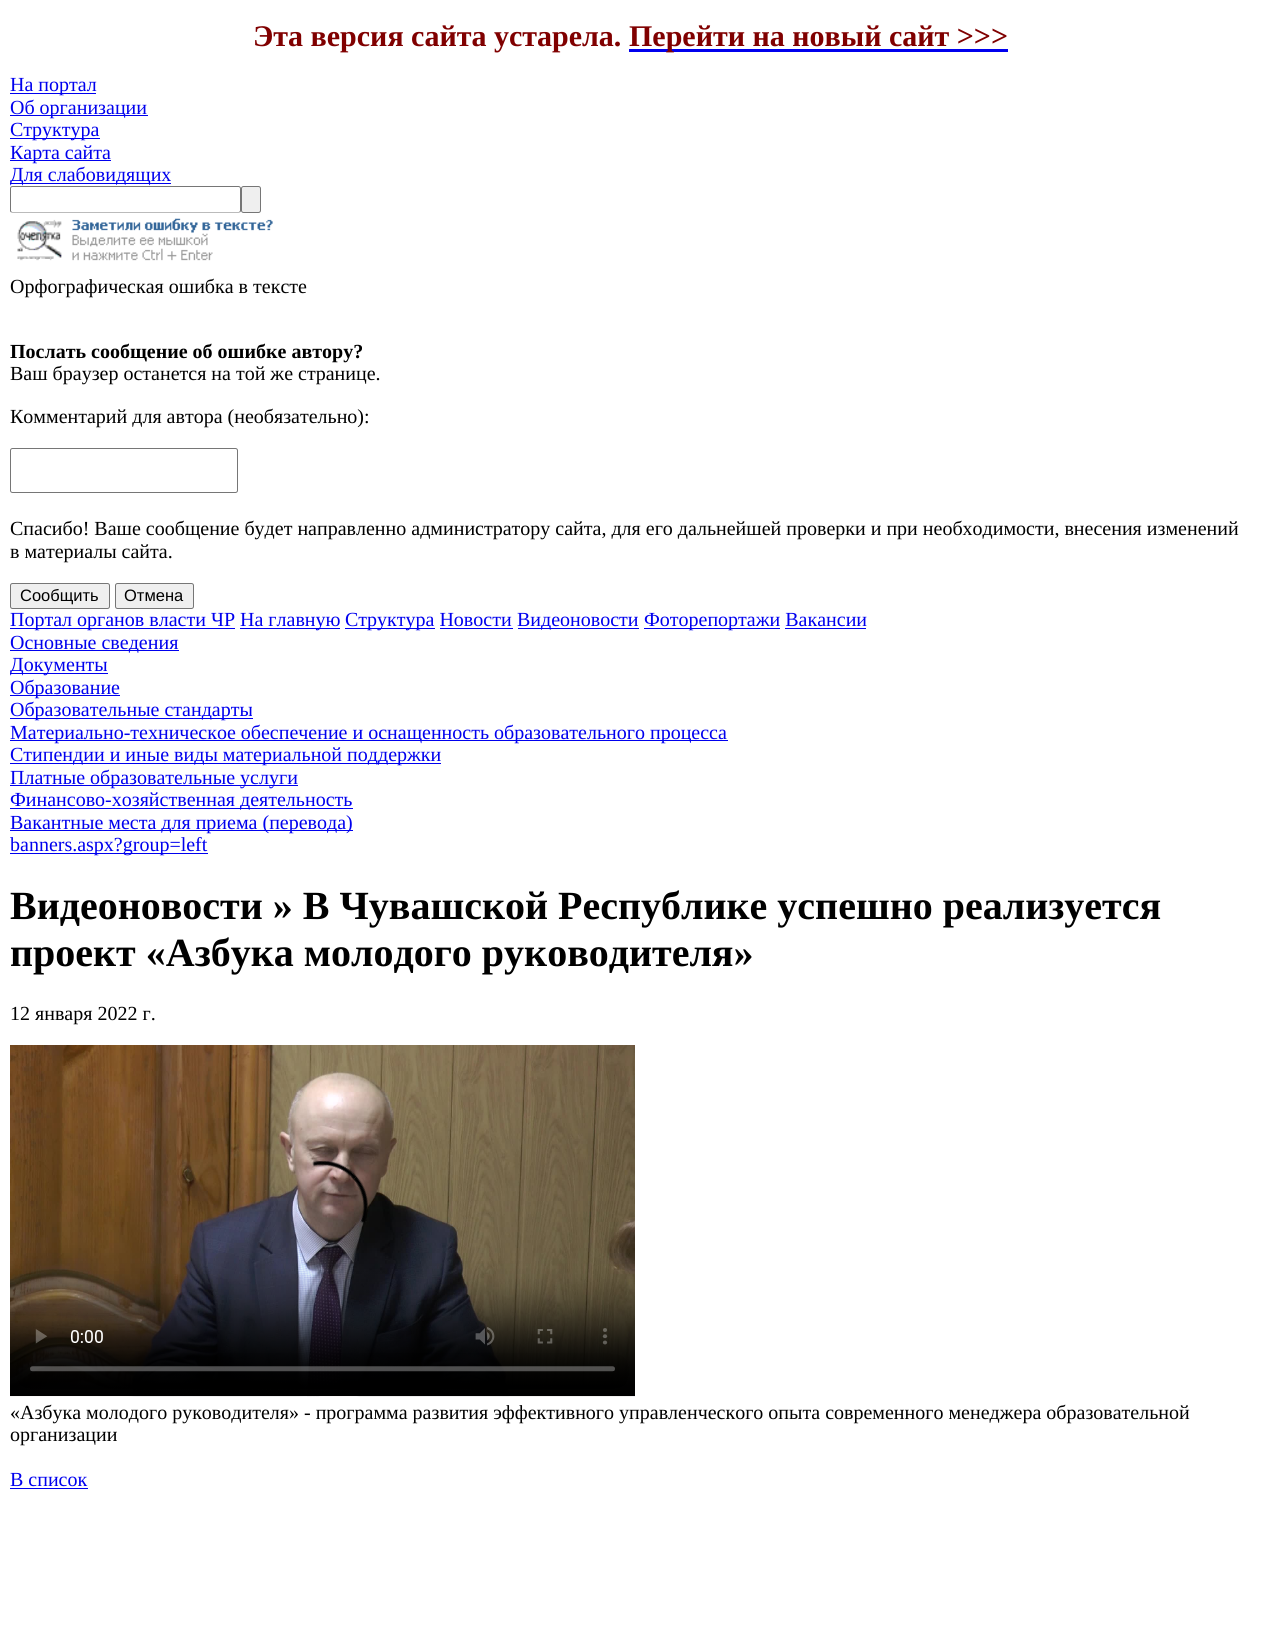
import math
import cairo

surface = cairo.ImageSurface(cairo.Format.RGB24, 1261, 1649)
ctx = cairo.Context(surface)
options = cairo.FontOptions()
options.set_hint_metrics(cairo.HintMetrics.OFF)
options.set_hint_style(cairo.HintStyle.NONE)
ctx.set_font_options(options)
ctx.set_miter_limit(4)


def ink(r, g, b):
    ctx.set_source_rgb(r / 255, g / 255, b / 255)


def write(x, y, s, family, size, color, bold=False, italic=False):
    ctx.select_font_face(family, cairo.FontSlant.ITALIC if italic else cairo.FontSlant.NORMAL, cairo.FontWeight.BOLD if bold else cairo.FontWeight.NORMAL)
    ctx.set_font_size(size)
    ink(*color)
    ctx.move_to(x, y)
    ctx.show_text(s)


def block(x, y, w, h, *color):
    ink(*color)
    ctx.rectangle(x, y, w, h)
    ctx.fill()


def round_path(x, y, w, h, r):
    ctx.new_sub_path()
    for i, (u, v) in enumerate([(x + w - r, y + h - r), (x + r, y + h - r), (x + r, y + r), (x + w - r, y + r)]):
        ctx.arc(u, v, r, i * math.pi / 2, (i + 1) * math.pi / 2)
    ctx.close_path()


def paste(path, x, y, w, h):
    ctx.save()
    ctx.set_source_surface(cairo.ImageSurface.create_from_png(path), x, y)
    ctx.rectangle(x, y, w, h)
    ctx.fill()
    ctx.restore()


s1 = dict(family="Liberation Serif", size=30, color=(128, 0, 0), bold=True)
s2 = dict(family="Liberation Serif", size=20, color=(0, 0, 238))
s3 = dict(family="Liberation Serif", size=20, color=(0, 0, 0))
s4 = dict(family="Liberation Serif", size=20, color=(0, 0, 0), bold=True)
s5 = dict(family="Liberation Sans", size=16.5, color=(0, 0, 0))
s6 = dict(family="Liberation Serif", size=40, color=(0, 0, 0), bold=True)

ink(255, 255, 255)
ctx.paint()
write(253, 46, "Эта версия сайта устарела.", **s1)
block(629, 49, 379, 3, 0, 0, 238)
write(629, 46, "Перейти на новый сайт >>>", **s1)
block(10, 93, 86, 1, 0, 0, 238)
write(10, 91, "На портал", **s2)
block(10, 115, 138, 1, 0, 0, 238)
write(10, 114, "Об организации", **s2)
block(10, 138, 90, 1, 0, 0, 238)
write(10, 136, "Структура", **s2)
block(10, 160, 101, 1, 0, 0, 238)
write(10, 159, "Карта сайта", **s2)
block(10, 183, 161, 1, 0, 0, 238)
write(10, 181, "Для слабовидящих", **s2)
round_path(10.5, 186.5, 230, 26, 2)
ink(118, 118, 118)
ctx.set_line_width(1)
ctx.stroke()
paste("pic1.png", 10, 212, 263, 49)
ink(239, 239, 239)
round_path(241.5, 186.5, 19, 26, 2)
ctx.fill_preserve()
ink(118, 118, 118)
ctx.stroke()
write(10, 293, "Орфографическая ошибка в тексте", **s3)
write(10, 358, "Послать сообщение об ошибке автору?", **s4)
write(10, 380, "Ваш браузер останется на той же странице.", **s3)
write(10, 423, "Комментарий для автора (необязательно):", **s3)
round_path(10.5, 448.5, 227, 44, 2)
ink(118, 118, 118)
ctx.stroke()
write(10, 535, "Спасибо! Ваше сообщение будет направленно администратору сайта, для его дальнейшей проверки и при необходимости, внесения изменений", **s3)
write(10, 558, "в материалы сайта.", **s3)
ink(239, 239, 239)
round_path(10.5, 583.5, 99, 25, 2)
ctx.fill_preserve()
ink(118, 118, 118)
ctx.stroke()
write(20, 601, "Сообщить", **s5)
ink(239, 239, 239)
round_path(115.5, 583.5, 78, 25, 2)
ctx.fill_preserve()
ink(118, 118, 118)
ctx.stroke()
write(124, 601, "Отмена", **s5)
block(10, 628, 225, 1, 0, 0, 238)
write(10, 626, "Портал органов власти ЧР", **s2)
block(240, 628, 100, 1, 0, 0, 238)
write(240, 626, "На главную", **s2)
block(345, 628, 90, 1, 0, 0, 238)
write(345, 626, "Структура Новости", **s2)
block(518, 628, 121, 1, 0, 0, 238)
write(517, 626, "Видеоновости", **s2)
block(644, 628, 136, 1, 0, 0, 238)
write(644, 626, "Фоторепортажи Вакансии", **s2)
block(440, 628, 73, 1, 0, 0, 238)
block(785, 628, 81, 1, 0, 0, 238)
block(10, 650, 169, 1, 0, 0, 238)
write(10, 649, "Основные сведения", **s2)
block(10, 673, 98, 1, 0, 0, 238)
write(10, 671, "Документы", **s2)
block(10, 695, 110, 1, 0, 0, 238)
write(10, 694, "Образование", **s2)
block(10, 718, 243, 1, 0, 0, 238)
write(10, 716, "Образовательные стандарты", **s2)
block(10, 740, 718, 1, 0, 0, 238)
write(10, 739, "Материально-техническое обеспечение и оснащенность образовательного процесса", **s2)
block(10, 763, 431, 1, 0, 0, 238)
write(10, 761, "Стипендии и иные виды материальной поддержки", **s2)
block(10, 785, 288, 1, 0, 0, 238)
write(10, 784, "Платные образовательные услуги", **s2)
block(10, 808, 343, 1, 0, 0, 238)
write(10, 806, "Финансово-хозяйственная деятельность", **s2)
block(10, 830, 343, 1, 0, 0, 238)
write(10, 829, "Вакантные места для приема (перевода)", **s2)
block(10, 853, 198, 1, 0, 0, 238)
write(10, 851, "banners.aspx?group=left", **s2)
write(10, 919, "Видеоновости » В Чувашской Республике успешно реализуется", **s6)
write(10, 966, "проект «Азбука молодого руководителя»", **s6)
write(10, 1020, "12 января 2022 г.", **s3)
paste("pic2.png", 10, 1045, 625, 352)
write(10, 1419, "«Азбука молодого руководителя» - программа развития эффективного управленческого опыта современного менеджера образовательной", **s3)
write(10, 1441, "организации", **s3)
write(10, 1486, "В список", **s2)
block(10, 1488, 78, 1, 0, 0, 238)
surface.write_to_png("screenshot.png")
